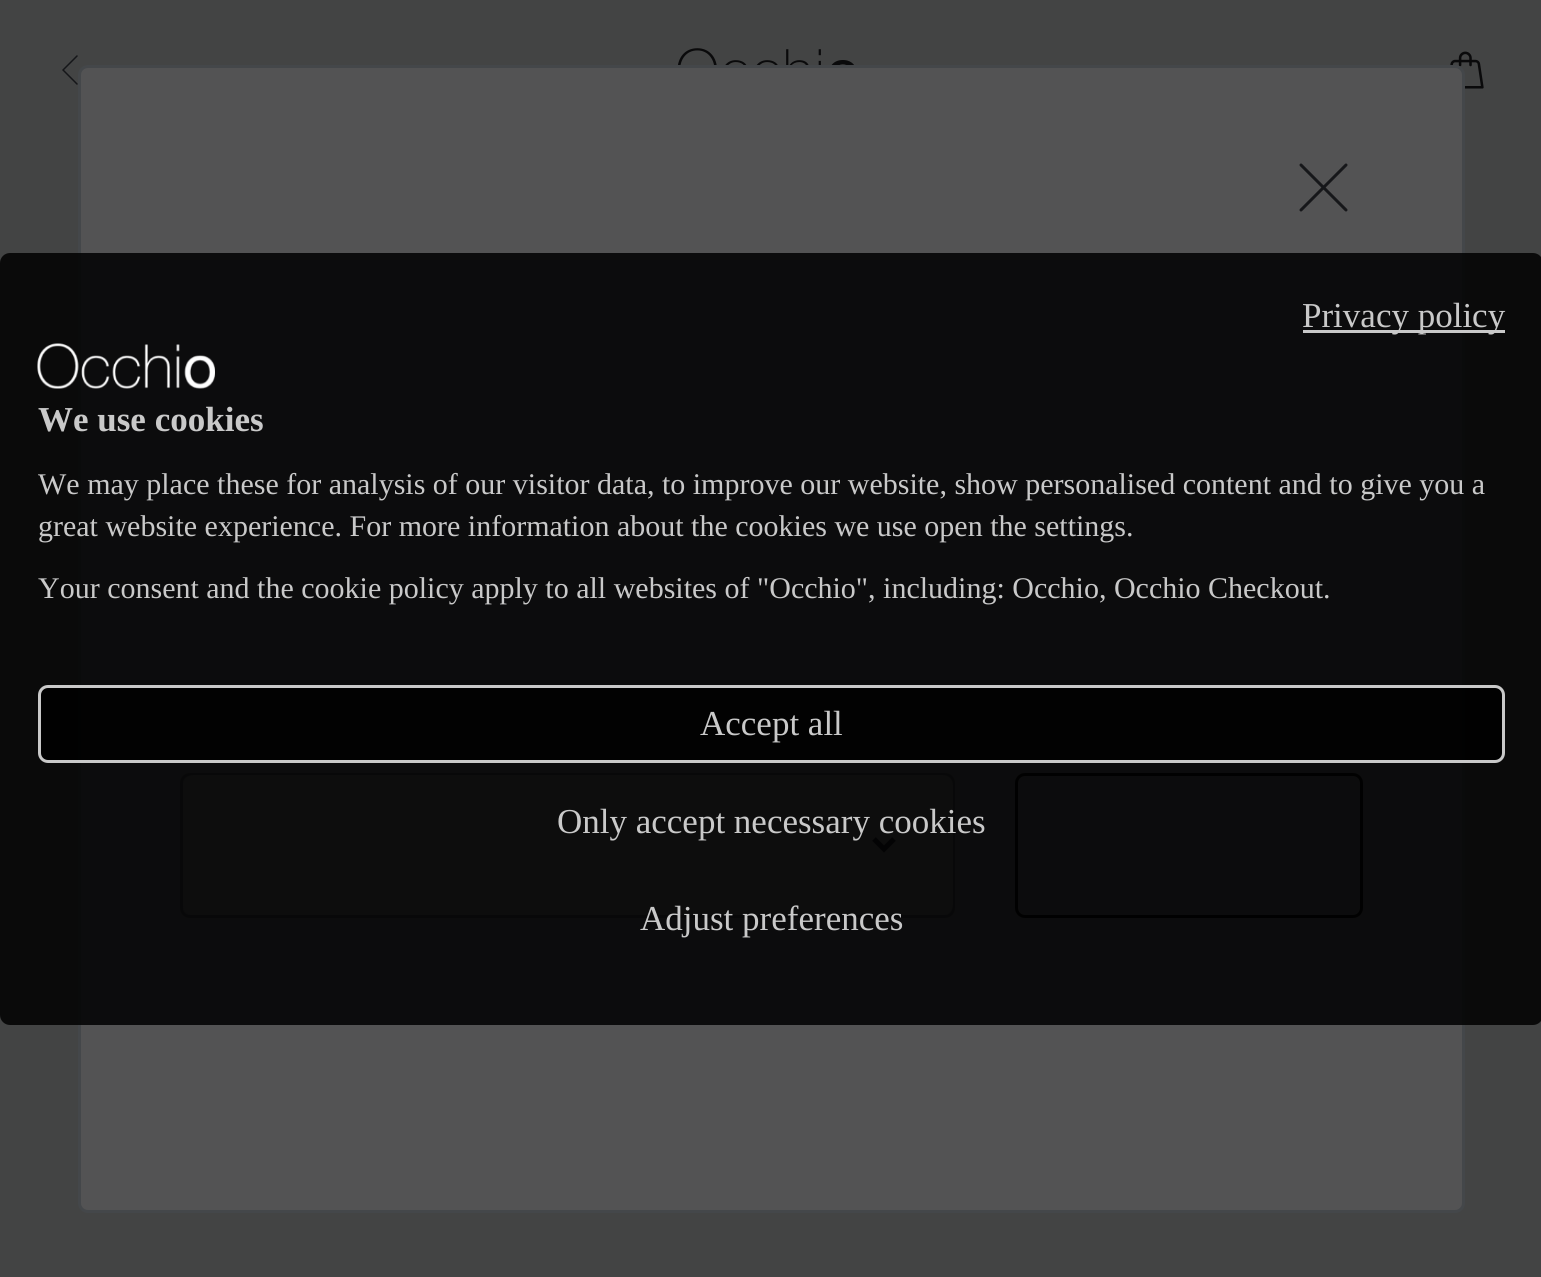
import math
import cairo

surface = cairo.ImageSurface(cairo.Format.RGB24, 1541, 1277)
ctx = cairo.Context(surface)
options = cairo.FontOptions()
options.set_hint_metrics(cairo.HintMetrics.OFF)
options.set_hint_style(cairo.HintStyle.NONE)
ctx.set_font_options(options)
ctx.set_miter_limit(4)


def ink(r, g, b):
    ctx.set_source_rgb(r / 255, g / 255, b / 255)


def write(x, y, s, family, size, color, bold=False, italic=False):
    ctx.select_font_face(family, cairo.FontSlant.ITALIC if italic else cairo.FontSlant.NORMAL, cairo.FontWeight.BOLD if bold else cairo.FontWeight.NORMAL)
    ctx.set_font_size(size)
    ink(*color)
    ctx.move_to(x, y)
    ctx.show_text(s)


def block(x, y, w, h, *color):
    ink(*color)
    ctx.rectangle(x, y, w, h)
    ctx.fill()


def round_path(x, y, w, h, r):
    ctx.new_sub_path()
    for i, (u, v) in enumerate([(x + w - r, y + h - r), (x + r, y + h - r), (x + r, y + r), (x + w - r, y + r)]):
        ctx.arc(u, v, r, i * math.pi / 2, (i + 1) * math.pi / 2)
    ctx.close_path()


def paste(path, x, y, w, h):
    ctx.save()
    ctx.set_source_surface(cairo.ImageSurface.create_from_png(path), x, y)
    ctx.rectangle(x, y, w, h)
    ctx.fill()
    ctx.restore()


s1 = dict(family="Liberation Serif", size=35, color=(201, 201, 201))
s2 = dict(family="Liberation Serif", size=35, color=(201, 201, 201), bold=True)
s3 = dict(family="Liberation Serif", size=30, color=(201, 201, 201))

ink(67, 68, 68)
ctx.paint()
ctx.new_path()
ctx.move_to(77, 84)
ctx.line_to(63, 70)
ctx.line_to(77, 56)
ink(21, 22, 25)
ctx.set_line_width(1.5)
ctx.set_line_cap(cairo.LineCap.ROUND)
ctx.set_line_join(cairo.LineJoin.ROUND)
ctx.stroke()
paste("pic1.png", 678, 48, 176, 17)
paste("pic2.png", 1450, 51, 34, 38)
ink(83, 83, 84)
round_path(79.5, 66.5, 1384, 1145, 8.5)
ctx.fill_preserve()
ink(68, 71, 74)
ctx.set_line_width(3)
ctx.set_line_cap(cairo.LineCap.BUTT)
ctx.set_line_join(cairo.LineJoin.MITER)
ctx.stroke()
ctx.new_path()
ctx.move_to(1301, 165)
ctx.line_to(1346, 210)
ctx.move_to(1301, 210)
ctx.line_to(1346, 165)
ink(22, 23, 26)
ctx.set_line_cap(cairo.LineCap.ROUND)
ctx.set_line_join(cairo.LineJoin.ROUND)
ctx.stroke()
round_path(181.5, 774.5, 772, 142, 8.5)
ink(56, 57, 59)
ctx.set_line_cap(cairo.LineCap.BUTT)
ctx.set_line_join(cairo.LineJoin.MITER)
ctx.stroke()
ink(84, 84, 84)
round_path(183, 775, 770, 140, 10)
ctx.fill()
ctx.new_path()
ctx.move_to(874, 839)
ctx.line_to(884, 849)
ctx.line_to(894, 839)
ink(22, 23, 26)
ctx.set_line_width(5)
ctx.stroke()
round_path(1016.5, 774.5, 345, 142, 8.5)
ink(7, 7, 7)
ctx.set_line_width(3)
ctx.stroke()
ctx.set_source_rgba(0, 0, 0, 0.85)
round_path(0, 253, 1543, 772, 10)
ctx.fill()
block(1303, 330, 202, 3, 201, 201, 201)
write(1302, 327, "Privacy policy", **s1)
paste("pic3.png", 37, 343, 178, 46)
write(38, 431, "We use cookies", **s2)
write(38, 494, "We may place these for analysis of our visitor data, to improve our website, show personalised content and to give you a", **s3)
write(38, 536, "great website experience. For more information about the cookies we use open the settings.", **s3)
write(38, 598, "Your consent and the cookie policy apply to all websites of \"Occhio\", including: Occhio, Occhio Checkout.", **s3)
ctx.set_source_rgba(0, 0, 0, 0.85)
round_path(39.5, 686.5, 1464, 75, 8.5)
ctx.fill_preserve()
ink(201, 201, 201)
ctx.stroke()
write(700, 735, "Accept all", **s1)
write(557, 833, "Only accept necessary cookies", **s1)
write(640, 930, "Adjust preferences", **s1)
surface.write_to_png("screenshot.png")
